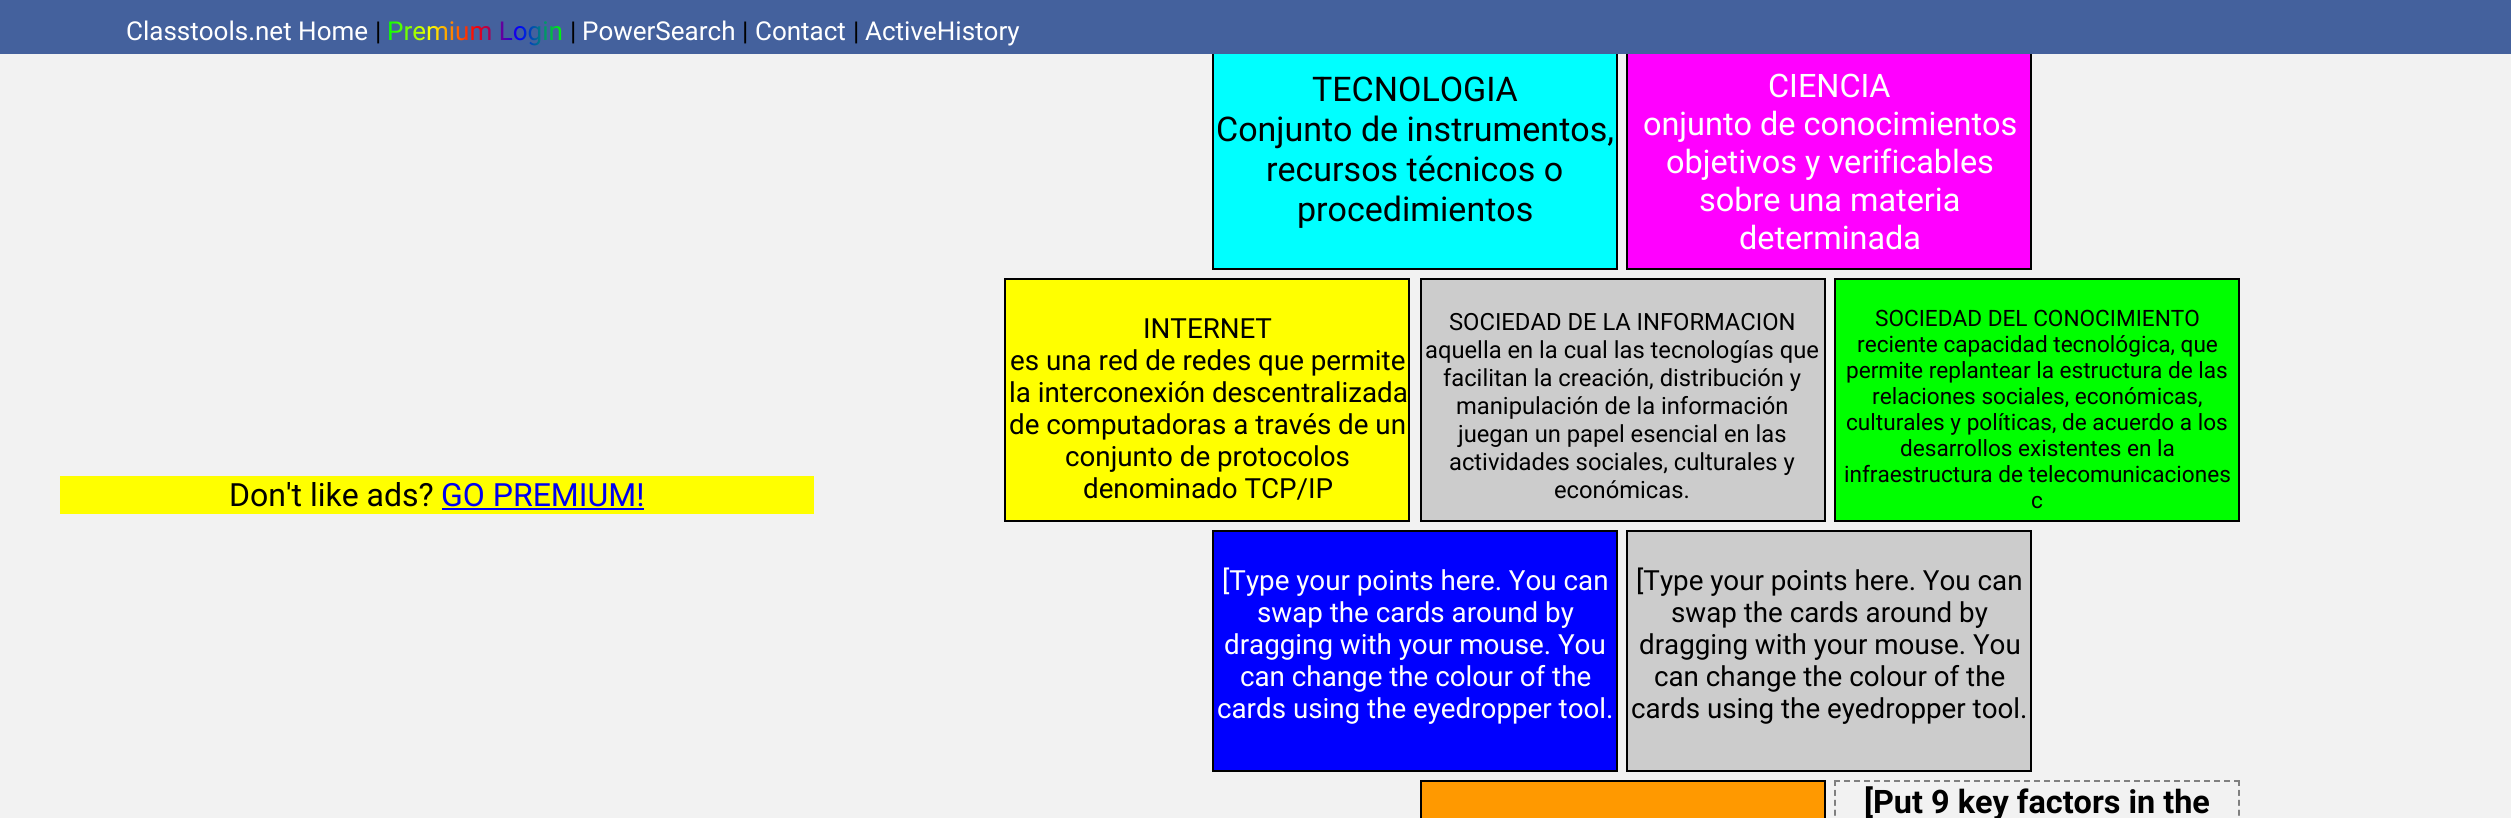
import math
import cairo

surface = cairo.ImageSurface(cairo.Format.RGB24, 2511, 818)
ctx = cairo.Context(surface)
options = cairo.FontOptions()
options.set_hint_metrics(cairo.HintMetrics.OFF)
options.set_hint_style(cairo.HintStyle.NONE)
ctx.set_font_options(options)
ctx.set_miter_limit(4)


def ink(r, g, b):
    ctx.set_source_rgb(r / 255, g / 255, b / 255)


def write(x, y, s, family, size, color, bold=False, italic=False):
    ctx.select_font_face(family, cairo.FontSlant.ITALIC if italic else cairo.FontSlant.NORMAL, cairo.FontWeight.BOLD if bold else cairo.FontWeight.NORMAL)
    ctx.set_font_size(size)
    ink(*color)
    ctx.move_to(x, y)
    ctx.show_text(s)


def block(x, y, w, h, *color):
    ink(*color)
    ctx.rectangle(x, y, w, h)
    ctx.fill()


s1 = dict(family="Roboto", size=26, color=(255, 255, 255))
s2 = dict(family="Roboto", size=26, color=(0, 0, 0))
s3 = dict(family="Roboto", size=32, color=(0, 0, 0))
s4 = dict(family="Roboto", size=32, color=(0, 0, 238))
s5 = dict(family="Roboto", size=34, color=(0, 0, 0))
s6 = dict(family="Roboto", size=32.4, color=(255, 255, 255))
s7 = dict(family="Roboto", size=27.75, color=(0, 0, 0))
s8 = dict(family="Roboto", size=23.75, color=(0, 0, 0))
s9 = dict(family="Roboto", size=22.6, color=(0, 0, 0))
s10 = dict(family="Roboto", size=27.75, color=(255, 255, 255))
s11 = dict(family="Roboto", size=32.4, color=(0, 0, 0), bold=True)

ink(242, 242, 242)
ctx.paint()
block(1214, 54, 402, 214, 0, 255, 255)
ctx.rectangle(1213, 29, 404, 240)
ink(0, 0, 0)
ctx.stroke()
block(1628, 54, 402, 214, 255, 0, 255)
ctx.rectangle(1627, 29, 404, 240)
ink(0, 0, 0)
ctx.stroke()
block(0, 0, 2511, 54, 68, 97, 157)
write(126, 40, "Classtools.net Home", **s1)
write(375, 40, "|", **s2)
gradient = cairo.LinearGradient(387, 31, 563, 31)
gradient.add_color_stop_rgba(0, 0, 1, 0, 1)
gradient.add_color_stop_rgba(0.25, 1, 1, 0, 1)
gradient.add_color_stop_rgba(0.5, 1, 0, 0, 1)
gradient.add_color_stop_rgba(0.75, 0, 0, 1, 1)
gradient.add_color_stop_rgba(1, 0, 1, 0, 1)
ctx.set_source(gradient)
ctx.move_to(387, 40)
ctx.show_text("Premium Login")
write(570, 40, "|", **s2)
write(582, 40, "PowerSearch", **s1)
write(742, 40, "|", **s2)
write(755, 40, "Contact", **s1)
write(853, 40, "|", **s2)
write(865, 40, "ActiveHistory", **s1)
block(60, 476, 754, 38, 255, 255, 0)
write(229, 506, "Don't like ads?", **s3)
write(441, 506, "GO PREMIUM!", **s4)
block(442, 508, 202, 2, 0, 0, 238)
write(1312, 101, "TECNOLOGIA", **s5)
write(1216, 141, "Conjunto de instrumentos,", **s5)
write(1266, 181, "recursos técnicos o", **s5)
write(1297, 221, "procedimientos", **s5)
write(1768, 97, "CIENCIA", **s6)
write(1643, 135, "onjunto de conocimientos", **s6)
write(1666, 173, "objetivos y verificables", **s6)
write(1699, 211, "sobre una materia", **s6)
write(1739, 249, "determinada", **s6)
ink(255, 255, 0)
ctx.rectangle(1005, 279, 404, 242)
ctx.fill_preserve()
ink(0, 0, 0)
ctx.stroke()
write(1143, 338, "INTERNET", **s7)
write(1010, 370, "es una red de redes que permite", **s7)
write(1009, 402, "la interconexión descentralizada", **s7)
write(1009, 434, "de computadoras a través de un", **s7)
write(1065, 466, "conjunto de protocolos", **s7)
write(1083, 498, "denominado TCP/IP", **s7)
ink(204, 204, 204)
ctx.rectangle(1421, 279, 404, 242)
ctx.fill_preserve()
ink(0, 0, 0)
ctx.stroke()
write(1449, 330, "SOCIEDAD DE LA INFORMACION", **s8)
write(1425, 358, "aquella en la cual las tecnologías que", **s8)
write(1443, 386, "facilitan la creación, distribución y", **s8)
write(1456, 414, "manipulación de la información", **s8)
write(1458, 442, "juegan un papel esencial en las", **s8)
write(1449, 470, "actividades sociales, culturales y", **s8)
write(1554, 498, "económicas.", **s8)
ink(0, 255, 0)
ctx.rectangle(1835, 279, 404, 242)
ctx.fill_preserve()
ink(0, 0, 0)
ctx.stroke()
write(1875, 326, "SOCIEDAD DEL CONOCIMIENTO", **s9)
write(1857, 352, "reciente capacidad tecnológica, que", **s9)
write(1846, 378, "permite replantear la estructura de las", **s9)
write(1872, 404, "relaciones sociales, económicas,", **s9)
write(1846, 430, "culturales y políticas, de acuerdo a los", **s9)
write(1900, 456, "desarrollos existentes en la", **s9)
write(1844, 482, "infraestructura de telecomunicaciones", **s9)
write(2031, 508, "c", **s9)
ink(0, 0, 255)
ctx.rectangle(1213, 531, 404, 240)
ctx.fill_preserve()
ink(0, 0, 0)
ctx.stroke()
write(1222, 590, "[Type your points here. You can", **s10)
write(1257, 622, "swap the cards around by", **s10)
write(1224, 654, "dragging with your mouse. You", **s10)
write(1240, 686, "can change the colour of the", **s10)
write(1217, 718, "cards using the eyedropper tool.", **s10)
ink(204, 204, 204)
ctx.rectangle(1627, 531, 404, 240)
ctx.fill_preserve()
ink(0, 0, 0)
ctx.stroke()
write(1636, 590, "[Type your points here. You can", **s7)
write(1671, 622, "swap the cards around by", **s7)
write(1639, 654, "dragging with your mouse. You", **s7)
write(1654, 686, "can change the colour of the", **s7)
write(1631, 718, "cards using the eyedropper tool.", **s7)
ink(255, 153, 0)
ctx.rectangle(1421, 781, 404, 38)
ctx.fill_preserve()
ink(0, 0, 0)
ctx.stroke()
ctx.new_path()
ctx.move_to(1834, 781)
ctx.line_to(2240, 781)
ink(128, 128, 128)
ctx.set_dash([6, 4])
ctx.stroke()
ctx.new_path()
ctx.move_to(2239, 780)
ctx.line_to(2239, 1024)
ctx.set_dash([6, 3.92])
ctx.stroke()
ctx.new_path()
ctx.move_to(1835, 780)
ctx.line_to(1835, 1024)
ctx.stroke()
write(1864, 813, "[Put 9 key factors in the", **s11)
surface.write_to_png("screenshot.png")
